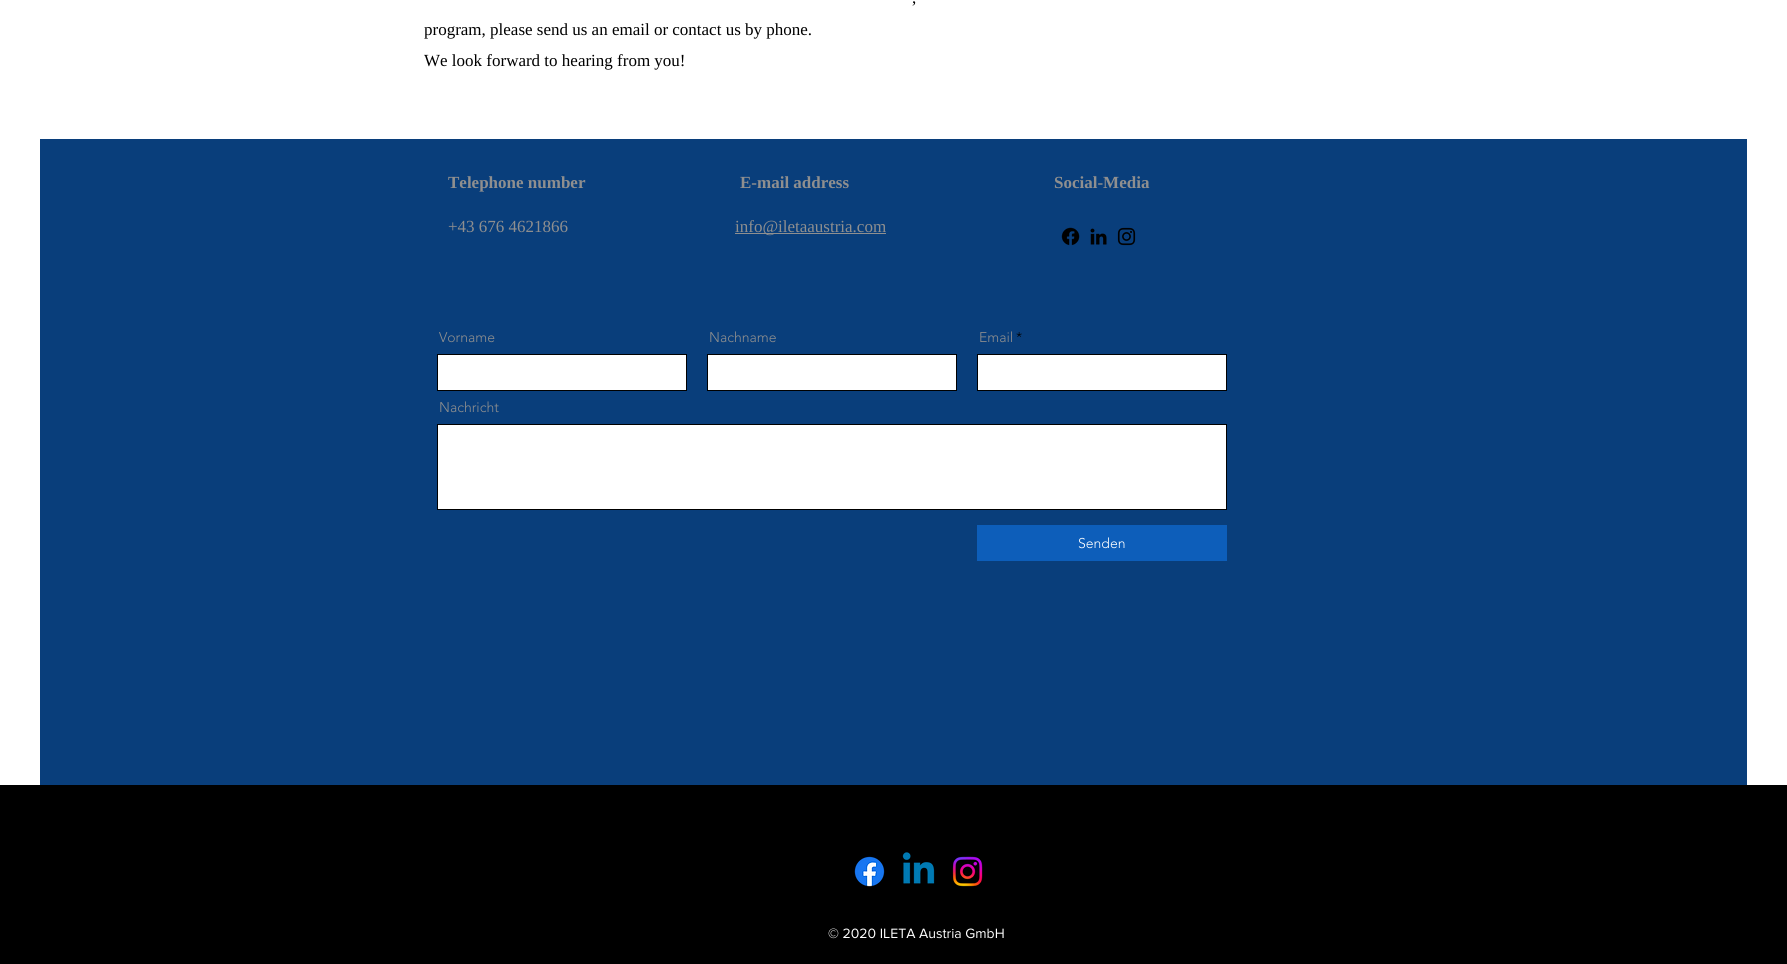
import math
import cairo

surface = cairo.ImageSurface(cairo.Format.RGB24, 1787, 964)
ctx = cairo.Context(surface)
options = cairo.FontOptions()
options.set_hint_metrics(cairo.HintMetrics.OFF)
options.set_hint_style(cairo.HintStyle.NONE)
ctx.set_font_options(options)
ctx.set_miter_limit(4)


def ink(r, g, b):
    ctx.set_source_rgb(r / 255, g / 255, b / 255)


def write(x, y, s, family, size, color, bold=False, italic=False):
    ctx.select_font_face(family, cairo.FontSlant.ITALIC if italic else cairo.FontSlant.NORMAL, cairo.FontWeight.BOLD if bold else cairo.FontWeight.NORMAL)
    ctx.set_font_size(size)
    ink(*color)
    ctx.move_to(x, y)
    ctx.show_text(s)


def block(x, y, w, h, *color):
    ink(*color)
    ctx.rectangle(x, y, w, h)
    ctx.fill()


def paste(path, x, y, w, h):
    ctx.save()
    ctx.set_source_surface(cairo.ImageSurface.create_from_png(path), x, y)
    ctx.rectangle(x, y, w, h)
    ctx.fill()
    ctx.restore()


s1 = dict(family="Liberation Serif", size=17, color=(0, 0, 0))
s2 = dict(family="Liberation Serif", size=17, color=(143, 143, 143), bold=True)
s3 = dict(family="Liberation Serif", size=17, color=(143, 143, 143))
s4 = dict(family="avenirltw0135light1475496 Light", size=14, color=(143, 143, 143))
s5 = dict(family="avenirltw0135light1475496 Light", size=14, color=(0, 0, 0))
s6 = dict(family="avenirltw0135light1475496 Light", size=14, color=(255, 255, 255))
s7 = dict(family="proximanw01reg", size=14, color=(255, 255, 255))

ink(255, 255, 255)
ctx.paint()
write(912, 3, ",", **s1)
write(424, 35, "program, please send us an email or contact us by phone.", **s1)
write(424, 66, "We look forward to hearing from you!", **s1)
block(40, 139, 1707, 646, 9, 62, 123)
write(448, 188, "Telephone number", **s2)
write(740, 188, "E-mail address", **s2)
write(1054, 188, "Social-Media", **s2)
write(448, 232, "+43 676 4621866", **s3)
block(735, 233, 151, 1, 143, 143, 143)
write(735, 232, "info@iletaaustria.com", **s3)
paste("pic1.png", 1061, 227, 19, 19)
paste("pic2.png", 1090, 228, 17, 17)
paste("pic3.png", 1117, 227, 19, 19)
write(439, 342, "Vorname", **s4)
ink(255, 255, 255)
ctx.rectangle(437.5, 354.5, 249, 36)
ctx.fill_preserve()
ink(0, 0, 0)
ctx.set_line_width(1)
ctx.stroke()
write(709, 342, "Nachname", **s4)
ink(255, 255, 255)
ctx.rectangle(707.5, 354.5, 249, 36)
ctx.fill_preserve()
ink(0, 0, 0)
ctx.stroke()
write(979, 342, "Email", **s4)
write(1016, 342, "*", **s5)
ink(255, 255, 255)
ctx.rectangle(977.5, 354.5, 249, 36)
ctx.fill_preserve()
ink(0, 0, 0)
ctx.stroke()
write(439, 412, "Nachricht", **s4)
ink(255, 255, 255)
ctx.rectangle(437.5, 424.5, 789, 85)
ctx.fill_preserve()
ink(0, 0, 0)
ctx.stroke()
block(977, 525, 250, 36, 13, 94, 186)
write(1078, 548, "Senden", **s6)
block(0, 785, 1787, 179, 0, 0, 0)
paste("pic4.png", 854, 856, 31, 31)
paste("pic5.png", 902, 852, 33, 32)
paste("pic6.png", 952, 856, 31, 31)
write(828, 938, "© 2020 ILETA Austria GmbH", **s7)
surface.write_to_png("screenshot.png")
